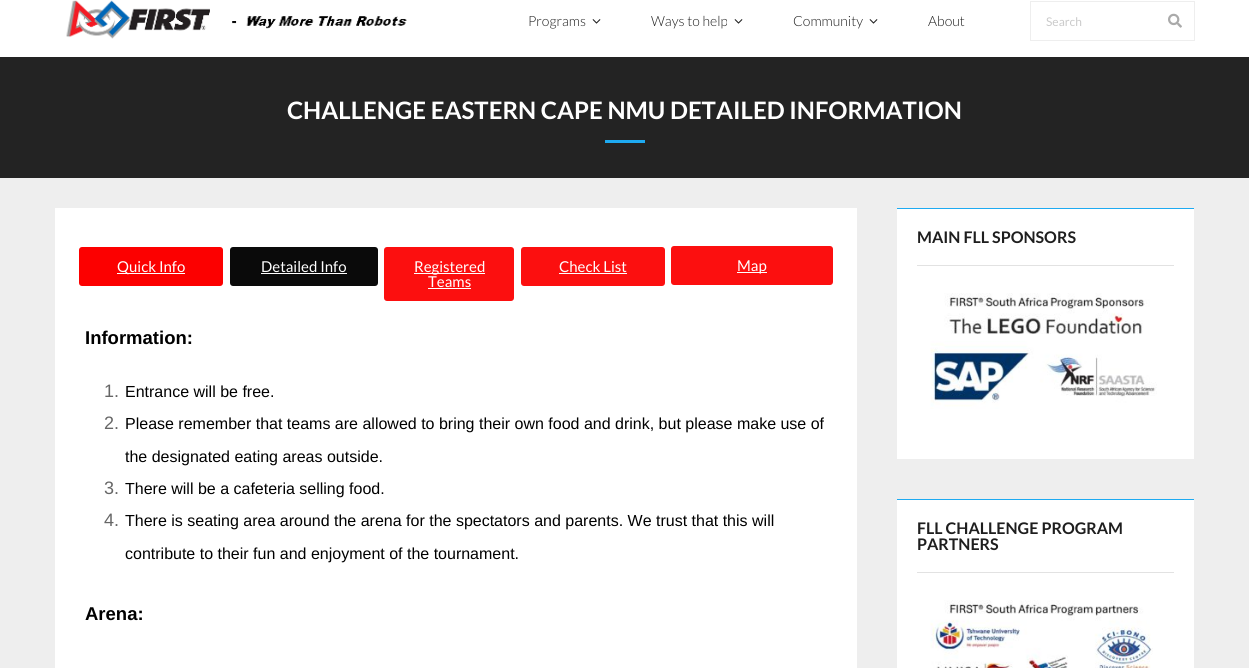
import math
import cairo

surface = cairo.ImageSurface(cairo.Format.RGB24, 1249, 668)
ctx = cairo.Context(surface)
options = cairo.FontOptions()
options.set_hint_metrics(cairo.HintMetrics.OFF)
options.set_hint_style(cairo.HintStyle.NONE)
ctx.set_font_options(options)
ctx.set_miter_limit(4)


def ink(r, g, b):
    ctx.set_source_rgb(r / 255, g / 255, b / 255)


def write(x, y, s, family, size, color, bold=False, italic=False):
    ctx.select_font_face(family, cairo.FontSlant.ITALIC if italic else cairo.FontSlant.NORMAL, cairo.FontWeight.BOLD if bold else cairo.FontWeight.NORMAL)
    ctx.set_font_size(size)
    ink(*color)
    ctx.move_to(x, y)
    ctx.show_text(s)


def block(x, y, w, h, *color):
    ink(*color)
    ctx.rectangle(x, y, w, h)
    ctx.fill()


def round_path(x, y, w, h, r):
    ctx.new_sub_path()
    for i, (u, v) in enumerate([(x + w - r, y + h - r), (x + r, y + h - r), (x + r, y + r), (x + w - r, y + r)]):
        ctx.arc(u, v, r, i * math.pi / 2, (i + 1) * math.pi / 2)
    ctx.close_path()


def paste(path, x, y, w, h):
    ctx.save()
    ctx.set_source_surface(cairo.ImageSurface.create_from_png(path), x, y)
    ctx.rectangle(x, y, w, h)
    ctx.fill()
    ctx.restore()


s1 = dict(family="Lato Light", size=14, color=(30, 30, 30))
s2 = dict(family="Lato", size=12, color=(202, 202, 202))
s3 = dict(family="Lato", size=24, color=(255, 255, 255), bold=True)
s4 = dict(family="Lato", size=15, color=(255, 255, 255))
s5 = dict(family="Liberation Sans", size=18.5, color=(0, 0, 0), bold=True)
s6 = dict(family="Liberation Sans", size=18, color=(102, 102, 102))
s7 = dict(family="Liberation Sans", size=16, color=(0, 0, 0))
s8 = dict(family="Lato", size=16, color=(30, 30, 30), bold=True)

ink(238, 238, 238)
ctx.paint()
block(0, 0, 1249, 57, 255, 255, 255)
paste("pic1.png", 66, 0, 341, 39)
write(528, 26, "Programs", **s1)
paste("pic2.png", 592, 19, 9, 5)
write(651, 26, "Ways to help", **s1)
paste("pic2.png", 734, 19, 9, 5)
write(793, 26, "Community", **s1)
paste("pic2.png", 869, 19, 9, 5)
write(928, 26, "About", **s1)
ctx.rectangle(1030.5, 1.5, 164, 39)
ink(238, 238, 238)
ctx.set_line_width(1)
ctx.stroke()
write(1046, 26, "Search", **s2)
paste("pic3.png", 1168, 13, 14, 15)
block(0, 57, 1249, 121, 35, 35, 35)
write(287, 119, "CHALLENGE EASTERN CAPE NMU DETAILED INFORMATION", **s3)
block(605, 140, 40, 3, 30, 170, 241)
block(55, 208, 802, 460, 255, 255, 255)
ink(252, 0, 0)
round_path(79, 247, 144, 39, 3)
ctx.fill()
block(117, 273, 68, 1, 255, 255, 255)
write(117, 272, "Quick Info", **s4)
ink(10, 10, 10)
round_path(230, 247, 148, 39, 3)
ctx.fill()
write(261, 272, "Detailed Info", **s4)
block(261, 273, 86, 1, 255, 255, 255)
ink(252, 15, 15)
round_path(384, 247, 130, 54, 3)
ctx.fill()
block(414, 273, 71, 1, 255, 255, 255)
write(414, 272, "Registered", **s4)
write(428, 287, "Teams", **s4)
block(428, 288, 43, 1, 255, 255, 255)
ink(252, 15, 15)
round_path(521, 247, 144, 39, 3)
ctx.fill()
write(559, 272, "Check List", **s4)
block(559, 273, 68, 1, 255, 255, 255)
ink(252, 15, 15)
round_path(671, 246, 162, 39, 3)
ctx.fill()
block(737, 272, 30, 1, 255, 255, 255)
write(737, 271, "Map", **s4)
write(85, 344, "Information:", **s5)
write(104, 397, "1.", **s6)
write(125, 397, "Entrance will be free.", **s7)
write(104, 429, "2.", **s6)
write(125, 429, "Please remember that teams are allowed to bring their own food and drink, but please make use of", **s7)
write(125, 462, "the designated eating areas outside.", **s7)
write(104, 494, "3.", **s6)
write(125, 494, "There will be a cafeteria selling food.", **s7)
write(104, 526, "4.", **s6)
write(125, 526, "There is seating area around the arena for the spectators and parents. We trust that this will", **s7)
write(125, 559, "contribute to their fun and enjoyment of the tournament.", **s7)
write(85, 620, "Arena:", **s5)
block(897, 209, 297, 250, 255, 255, 255)
block(897, 208, 297, 1, 30, 170, 241)
block(917, 265, 257, 1, 226, 226, 226)
write(917, 243, "MAIN FLL SPONSORS", **s8)
paste("pic4.png", 930, 293, 227, 116)
block(897, 500, 297, 168, 255, 255, 255)
block(897, 499, 297, 1, 30, 170, 241)
block(917, 572, 257, 1, 226, 226, 226)
write(917, 534, "FLL CHALLENGE PROGRAM", **s8)
write(917, 550, "PARTNERS", **s8)
paste("pic5.png", 930, 600, 223, 68)
surface.write_to_png("screenshot.png")
